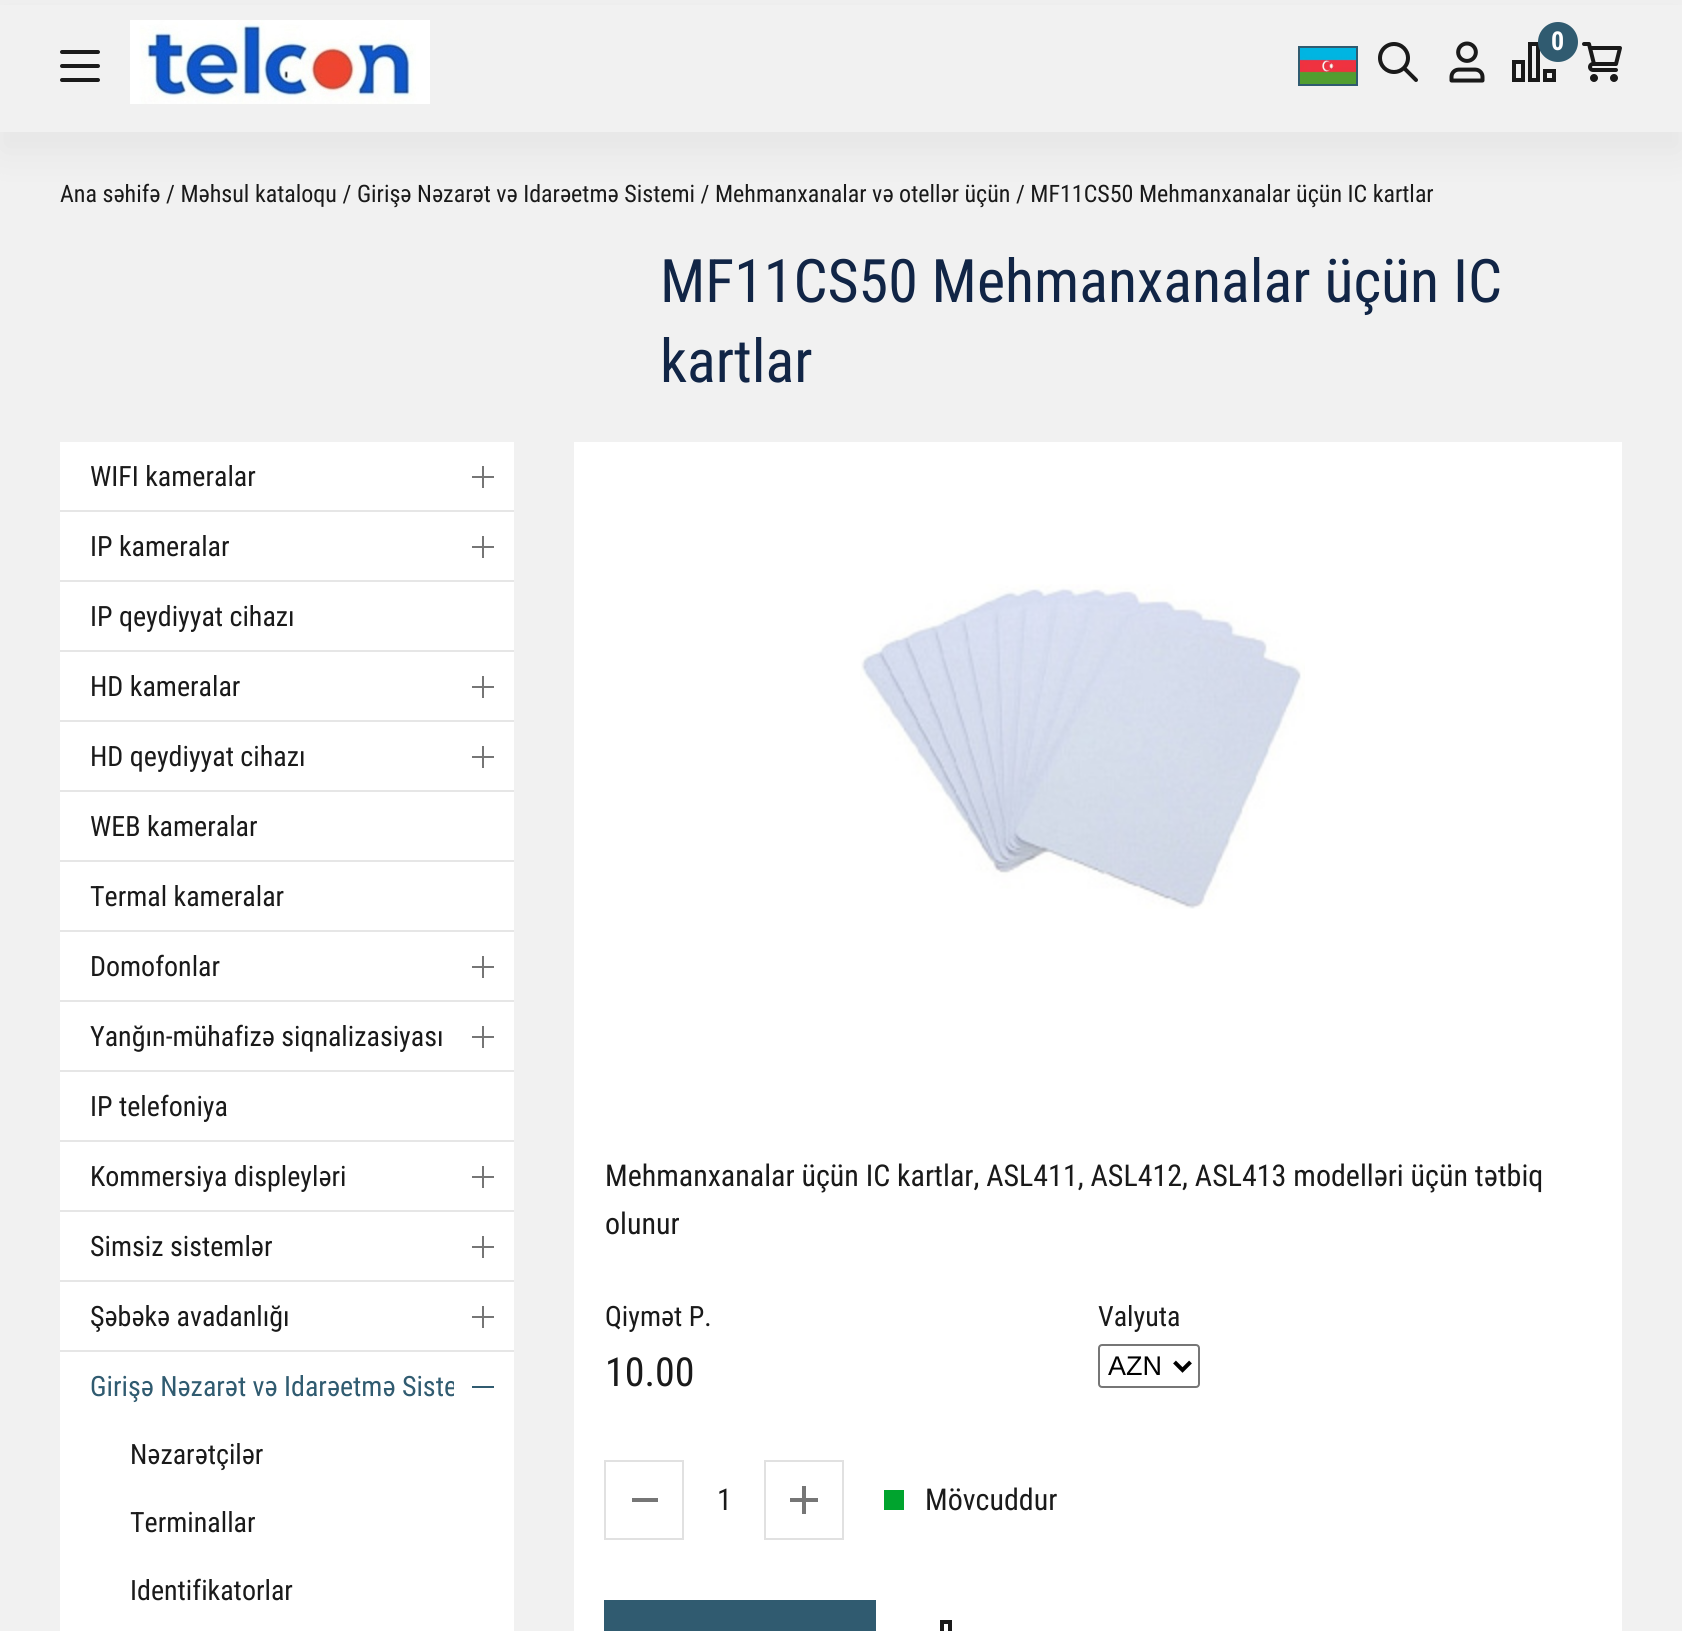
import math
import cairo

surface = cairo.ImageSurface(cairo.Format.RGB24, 1682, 1631)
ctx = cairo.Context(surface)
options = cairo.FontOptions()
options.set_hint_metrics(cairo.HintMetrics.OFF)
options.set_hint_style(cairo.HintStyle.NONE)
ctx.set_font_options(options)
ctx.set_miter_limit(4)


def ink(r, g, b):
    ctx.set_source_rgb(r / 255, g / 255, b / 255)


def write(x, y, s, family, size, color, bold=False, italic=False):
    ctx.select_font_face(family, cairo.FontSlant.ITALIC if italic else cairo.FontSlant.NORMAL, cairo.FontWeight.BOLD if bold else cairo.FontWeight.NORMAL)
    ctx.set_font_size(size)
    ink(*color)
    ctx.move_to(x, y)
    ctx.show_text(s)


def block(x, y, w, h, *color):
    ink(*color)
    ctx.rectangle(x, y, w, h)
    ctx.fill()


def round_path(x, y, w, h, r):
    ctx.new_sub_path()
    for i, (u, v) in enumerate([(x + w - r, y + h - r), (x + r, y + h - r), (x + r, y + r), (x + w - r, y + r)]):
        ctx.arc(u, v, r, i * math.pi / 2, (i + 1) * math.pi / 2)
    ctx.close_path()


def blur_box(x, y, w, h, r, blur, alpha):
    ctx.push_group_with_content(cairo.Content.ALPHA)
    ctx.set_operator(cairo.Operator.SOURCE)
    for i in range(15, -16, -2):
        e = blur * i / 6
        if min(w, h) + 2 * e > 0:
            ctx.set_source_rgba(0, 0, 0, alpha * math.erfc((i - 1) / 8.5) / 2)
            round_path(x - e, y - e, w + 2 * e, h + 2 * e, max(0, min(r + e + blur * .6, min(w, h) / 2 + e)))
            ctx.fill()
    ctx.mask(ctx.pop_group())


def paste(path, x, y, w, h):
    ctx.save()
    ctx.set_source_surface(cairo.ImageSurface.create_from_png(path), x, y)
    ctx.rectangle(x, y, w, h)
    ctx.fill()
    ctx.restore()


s1 = dict(family="Roboto Condensed", size=26, color=(255, 255, 255), bold=True)
s2 = dict(family="Roboto Condensed", size=24, color=(26, 26, 26))
s3 = dict(family="Roboto Condensed", size=60, color=(17, 37, 70))
s4 = dict(family="Roboto Condensed", size=28, color=(26, 26, 26))
s5 = dict(family="Roboto Condensed", size=28, color=(48, 91, 112))
s6 = dict(family="Roboto Condensed", size=30, color=(26, 26, 26))
s7 = dict(family="Roboto Condensed", size=40, color=(26, 26, 26))
s8 = dict(family="Liberation Sans", size=27, color=(0, 0, 0))

ink(241, 241, 241)
ctx.paint()
ink(0, 0, 0)
blur_box(0, 20, 1682, 132, 0, 20, 0.05)
block(0, 5, 1682, 127, 241, 241, 241)
ink(26, 26, 26)
round_path(60, 50, 40, 4, 2)
ctx.fill()
round_path(60, 64, 40, 4, 2)
ctx.fill()
round_path(60, 78, 40, 4, 2)
ctx.fill()
paste("pic1.png", 130, 20, 300, 84)
ctx.rectangle(1299, 47, 58, 38)
ink(48, 91, 112)
ctx.stroke()
paste("pic2.png", 1300, 48, 56, 36)
paste("pic3.png", 1378, 42, 40, 40)
paste("pic4.png", 1449, 41, 36, 42)
ctx.rectangle(1514, 62, 9, 18)
ink(26, 26, 26)
ctx.set_line_width(4)
ctx.stroke()
ctx.rectangle(1530, 44, 8, 36)
ctx.stroke()
ctx.rectangle(1545, 71, 9, 9)
ctx.stroke()
ink(48, 91, 112)
ctx.arc(1558, 42, 20, 0, 2 * math.pi)
ctx.fill()
write(1551, 50, "0", **s1)
paste("pic5.png", 1582, 42, 40, 40)
write(60, 202, "Ana səhifə / Məhsul kataloqu / Girişə Nəzarət və Idarəetmə Sistemi / Mehmanxanalar və otellər üçün / MF11CS50 Mehmanxanalar üçün IC kartlar", **s2)
write(660, 302, "MF11CS50 Mehmanxanalar üçün IC", **s3)
write(660, 382, "kartlar", **s3)
block(60, 442, 454, 1189, 255, 255, 255)
block(60, 510, 454, 2, 230, 230, 230)
write(90, 486, "WIFI kameralar", **s4)
block(482, 466, 2, 22, 118, 118, 118)
block(472, 476, 22, 2, 118, 118, 118)
block(60, 580, 454, 2, 230, 230, 230)
write(90, 556, "IP kameralar", **s4)
block(482, 536, 2, 22, 118, 118, 118)
block(472, 546, 22, 2, 118, 118, 118)
block(60, 650, 454, 2, 230, 230, 230)
write(90, 626, "IP qeydiyyat cihazı", **s4)
block(60, 720, 454, 2, 230, 230, 230)
write(90, 696, "HD kameralar", **s4)
block(482, 676, 2, 22, 118, 118, 118)
block(472, 686, 22, 2, 118, 118, 118)
block(60, 790, 454, 2, 230, 230, 230)
write(90, 766, "HD qeydiyyat cihazı", **s4)
block(482, 746, 2, 22, 118, 118, 118)
block(472, 756, 22, 2, 118, 118, 118)
block(60, 860, 454, 2, 230, 230, 230)
write(90, 836, "WEB kameralar", **s4)
block(60, 930, 454, 2, 230, 230, 230)
write(90, 906, "Termal kameralar", **s4)
block(60, 1000, 454, 2, 230, 230, 230)
write(90, 976, "Domofonlar", **s4)
block(482, 956, 2, 22, 118, 118, 118)
block(472, 966, 22, 2, 118, 118, 118)
block(60, 1070, 454, 2, 230, 230, 230)
write(90, 1046, "Yanğın-mühafizə siqnalizasiyası", **s4)
block(482, 1026, 2, 22, 118, 118, 118)
block(472, 1036, 22, 2, 118, 118, 118)
block(60, 1140, 454, 2, 230, 230, 230)
write(90, 1116, "IP telefoniya", **s4)
block(60, 1210, 454, 2, 230, 230, 230)
write(90, 1186, "Kommersiya displeyləri", **s4)
block(482, 1166, 2, 22, 118, 118, 118)
block(472, 1176, 22, 2, 118, 118, 118)
block(60, 1280, 454, 2, 230, 230, 230)
write(90, 1256, "Simsiz sistemlər", **s4)
block(482, 1236, 2, 22, 118, 118, 118)
block(472, 1246, 22, 2, 118, 118, 118)
block(60, 1350, 454, 2, 230, 230, 230)
write(90, 1326, "Şəbəkə avadanlığı", **s4)
block(482, 1306, 2, 22, 118, 118, 118)
block(472, 1316, 22, 2, 118, 118, 118)
write(90, 1396, "Girişə Nəzarət və Idarəetmə Siste", **s5)
block(454, 1382, 2, 14, 255, 255, 255)
block(472, 1386, 22, 2, 48, 91, 112)
write(130, 1464, "Nəzarətçilər", **s4)
write(130, 1532, "Terminallar", **s4)
write(130, 1600, "Identifikatorlar", **s4)
block(574, 442, 1048, 1189, 255, 255, 255)
paste("pic6.png", 860, 584, 445, 325)
write(605, 1186, "Mehmanxanalar üçün IC kartlar, ASL411, ASL412, ASL413 modelləri üçün tətbiq", **s6)
write(605, 1234, "olunur", **s6)
write(605, 1326, "Qiymət P.", **s4)
write(605, 1386, "10.00", **s7)
write(1098, 1326, "Valyuta", **s4)
round_path(1099, 1345, 100, 42, 3)
ink(118, 118, 118)
ctx.set_line_width(2)
ctx.stroke()
ctx.new_path()
ctx.move_to(1174.5, 1362)
ctx.line_to(1182.5, 1370)
ctx.line_to(1190.5, 1362)
ink(0, 0, 0)
ctx.set_line_width(4)
ctx.stroke()
write(1108, 1375, "AZN", **s8)
ctx.rectangle(605, 1461, 78, 78)
ink(225, 225, 225)
ctx.set_line_width(2)
ctx.stroke()
block(632, 1498, 26, 4, 118, 118, 118)
write(717, 1510, "1", **s6)
ctx.rectangle(765, 1461, 78, 78)
ink(225, 225, 225)
ctx.stroke()
paste("pic7.png", 790, 1486, 28, 28)
block(884, 1490, 20, 20, 0, 164, 46)
write(925, 1510, "Mövcuddur", **s6)
block(604, 1600, 272, 31, 48, 91, 112)
ctx.rectangle(942, 1622, 8, 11)
ink(26, 26, 26)
ctx.set_line_width(4)
ctx.stroke()
surface.write_to_png("screenshot.png")
